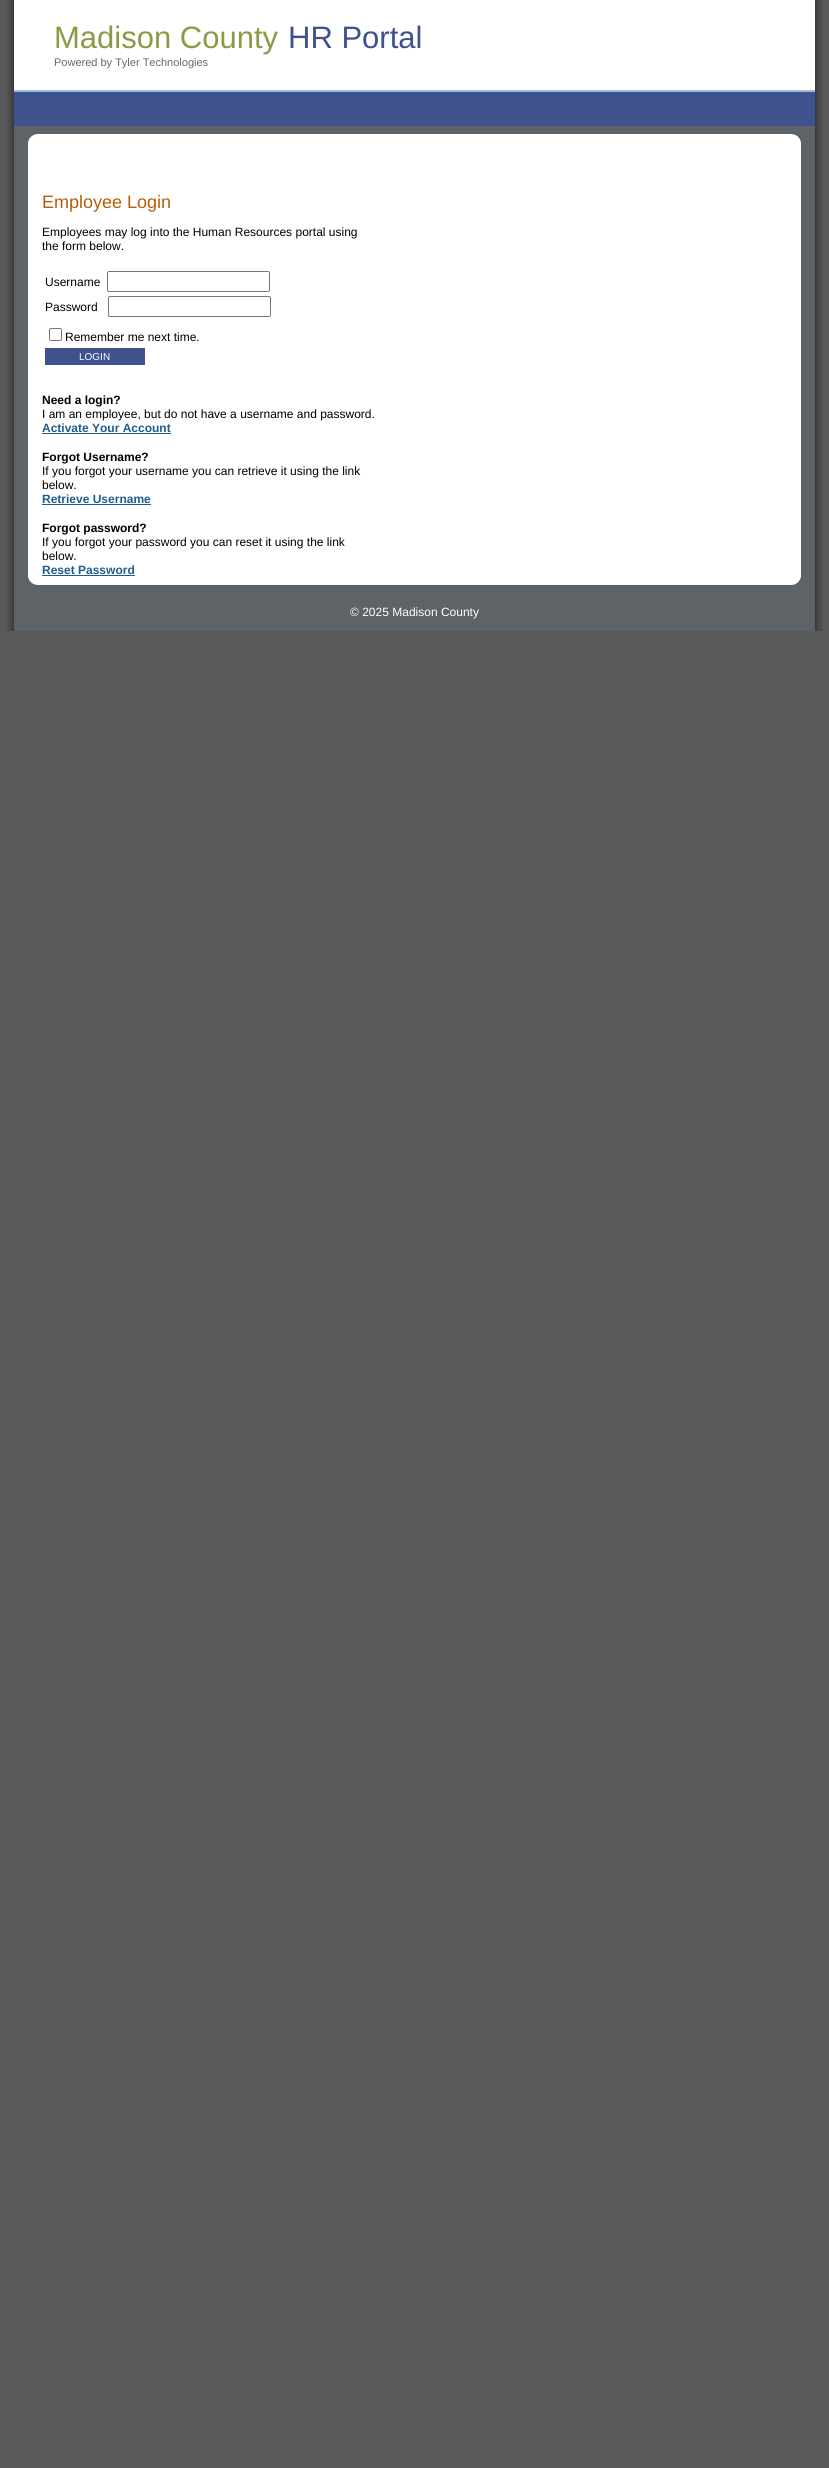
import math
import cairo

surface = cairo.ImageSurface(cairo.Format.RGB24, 829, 2468)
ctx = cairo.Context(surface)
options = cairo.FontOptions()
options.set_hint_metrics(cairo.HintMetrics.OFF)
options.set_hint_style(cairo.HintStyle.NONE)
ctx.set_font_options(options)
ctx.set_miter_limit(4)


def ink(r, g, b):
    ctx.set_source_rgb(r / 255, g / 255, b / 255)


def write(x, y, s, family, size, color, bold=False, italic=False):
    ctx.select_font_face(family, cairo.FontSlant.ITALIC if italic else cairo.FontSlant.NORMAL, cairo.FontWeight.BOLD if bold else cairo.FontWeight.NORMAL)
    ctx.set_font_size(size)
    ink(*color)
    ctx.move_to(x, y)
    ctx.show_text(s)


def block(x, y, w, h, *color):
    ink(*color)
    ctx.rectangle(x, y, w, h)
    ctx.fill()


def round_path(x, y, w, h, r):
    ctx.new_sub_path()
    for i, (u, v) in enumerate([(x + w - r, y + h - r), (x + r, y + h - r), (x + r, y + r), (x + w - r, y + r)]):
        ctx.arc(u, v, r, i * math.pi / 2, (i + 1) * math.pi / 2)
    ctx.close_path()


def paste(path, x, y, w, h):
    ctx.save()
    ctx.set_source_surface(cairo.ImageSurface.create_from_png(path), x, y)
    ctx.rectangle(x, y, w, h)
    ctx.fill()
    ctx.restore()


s1 = dict(family="Liberation Sans", size=31, color=(142, 153, 70))
s2 = dict(family="Liberation Sans", size=31, color=(64, 82, 142))
s3 = dict(family="Liberation Sans", size=11, color=(102, 102, 102))
s4 = dict(family="Liberation Sans", size=18, color=(180, 94, 8))
s5 = dict(family="Liberation Sans", size=12, color=(0, 0, 0))
s6 = dict(family="Liberation Sans", size=10, color=(255, 255, 255))
s7 = dict(family="Liberation Sans", size=12, color=(0, 0, 0), bold=True)
s8 = dict(family="Liberation Sans", size=12, color=(28, 93, 145), bold=True)
s9 = dict(family="Liberation Sans", size=12, color=(255, 255, 255))

ink(89, 89, 89)
ctx.paint()
paste("pic1.png", 6, 0, 8, 631)
block(14, 126, 801, 505, 93, 99, 102)
block(14, 0, 801, 90, 255, 255, 255)
write(54, 48, "Madison County", **s1)
write(288, 48, "HR Portal", **s2)
write(54, 66, "Powered by Tyler Technologies", **s3)
block(14, 92, 801, 34, 64, 82, 142)
block(14, 90, 801, 2, 153, 189, 220)
paste("pic2.png", 28, 134, 12, 8)
block(40, 134, 749, 8, 255, 255, 255)
paste("pic3.png", 789, 134, 12, 8)
block(28, 142, 773, 435, 255, 255, 255)
write(42, 208, "Employee Login", **s4)
write(42, 236, "Employees may log into the Human Resources portal using", **s5)
write(42, 250, "the form below.", **s5)
write(45, 286, "Username", **s5)
round_path(107.5, 271.5, 162, 20, 1.5)
ink(118, 118, 118)
ctx.set_line_width(1)
ctx.stroke()
write(45, 311, "Password", **s5)
round_path(108.5, 296.5, 162, 20, 1.5)
ink(118, 118, 118)
ctx.stroke()
round_path(49.5, 328.5, 12, 12, 1.5)
ctx.stroke()
write(65, 341, "Remember me next time.", **s5)
block(45, 348, 100, 17, 64, 82, 142)
write(79, 360, "LOGIN", **s6)
write(42, 404, "Need a login?", **s7)
write(42, 418, "I am an employee, but do not have a username and password.", **s5)
write(42, 432, "Activate Your Account", **s8)
block(42, 433, 129, 1, 28, 93, 145)
write(42, 461, "Forgot Username?", **s7)
write(42, 475, "If you forgot your username you can retrieve it using the link", **s5)
write(42, 489, "below.", **s5)
write(42, 503, "Retrieve Username", **s8)
block(42, 504, 109, 1, 28, 93, 145)
write(42, 532, "Forgot password?", **s7)
write(42, 546, "If you forgot your password you can reset it using the link", **s5)
write(42, 560, "below.", **s5)
write(42, 574, "Reset Password", **s8)
block(42, 575, 93, 1, 28, 93, 145)
paste("pic4.png", 28, 577, 12, 8)
block(40, 577, 749, 8, 255, 255, 255)
paste("pic5.png", 789, 577, 12, 8)
write(350, 616, "© 2025 Madison County", **s9)
paste("pic6.png", 815, 0, 8, 631)
surface.write_to_png("screenshot.png")
